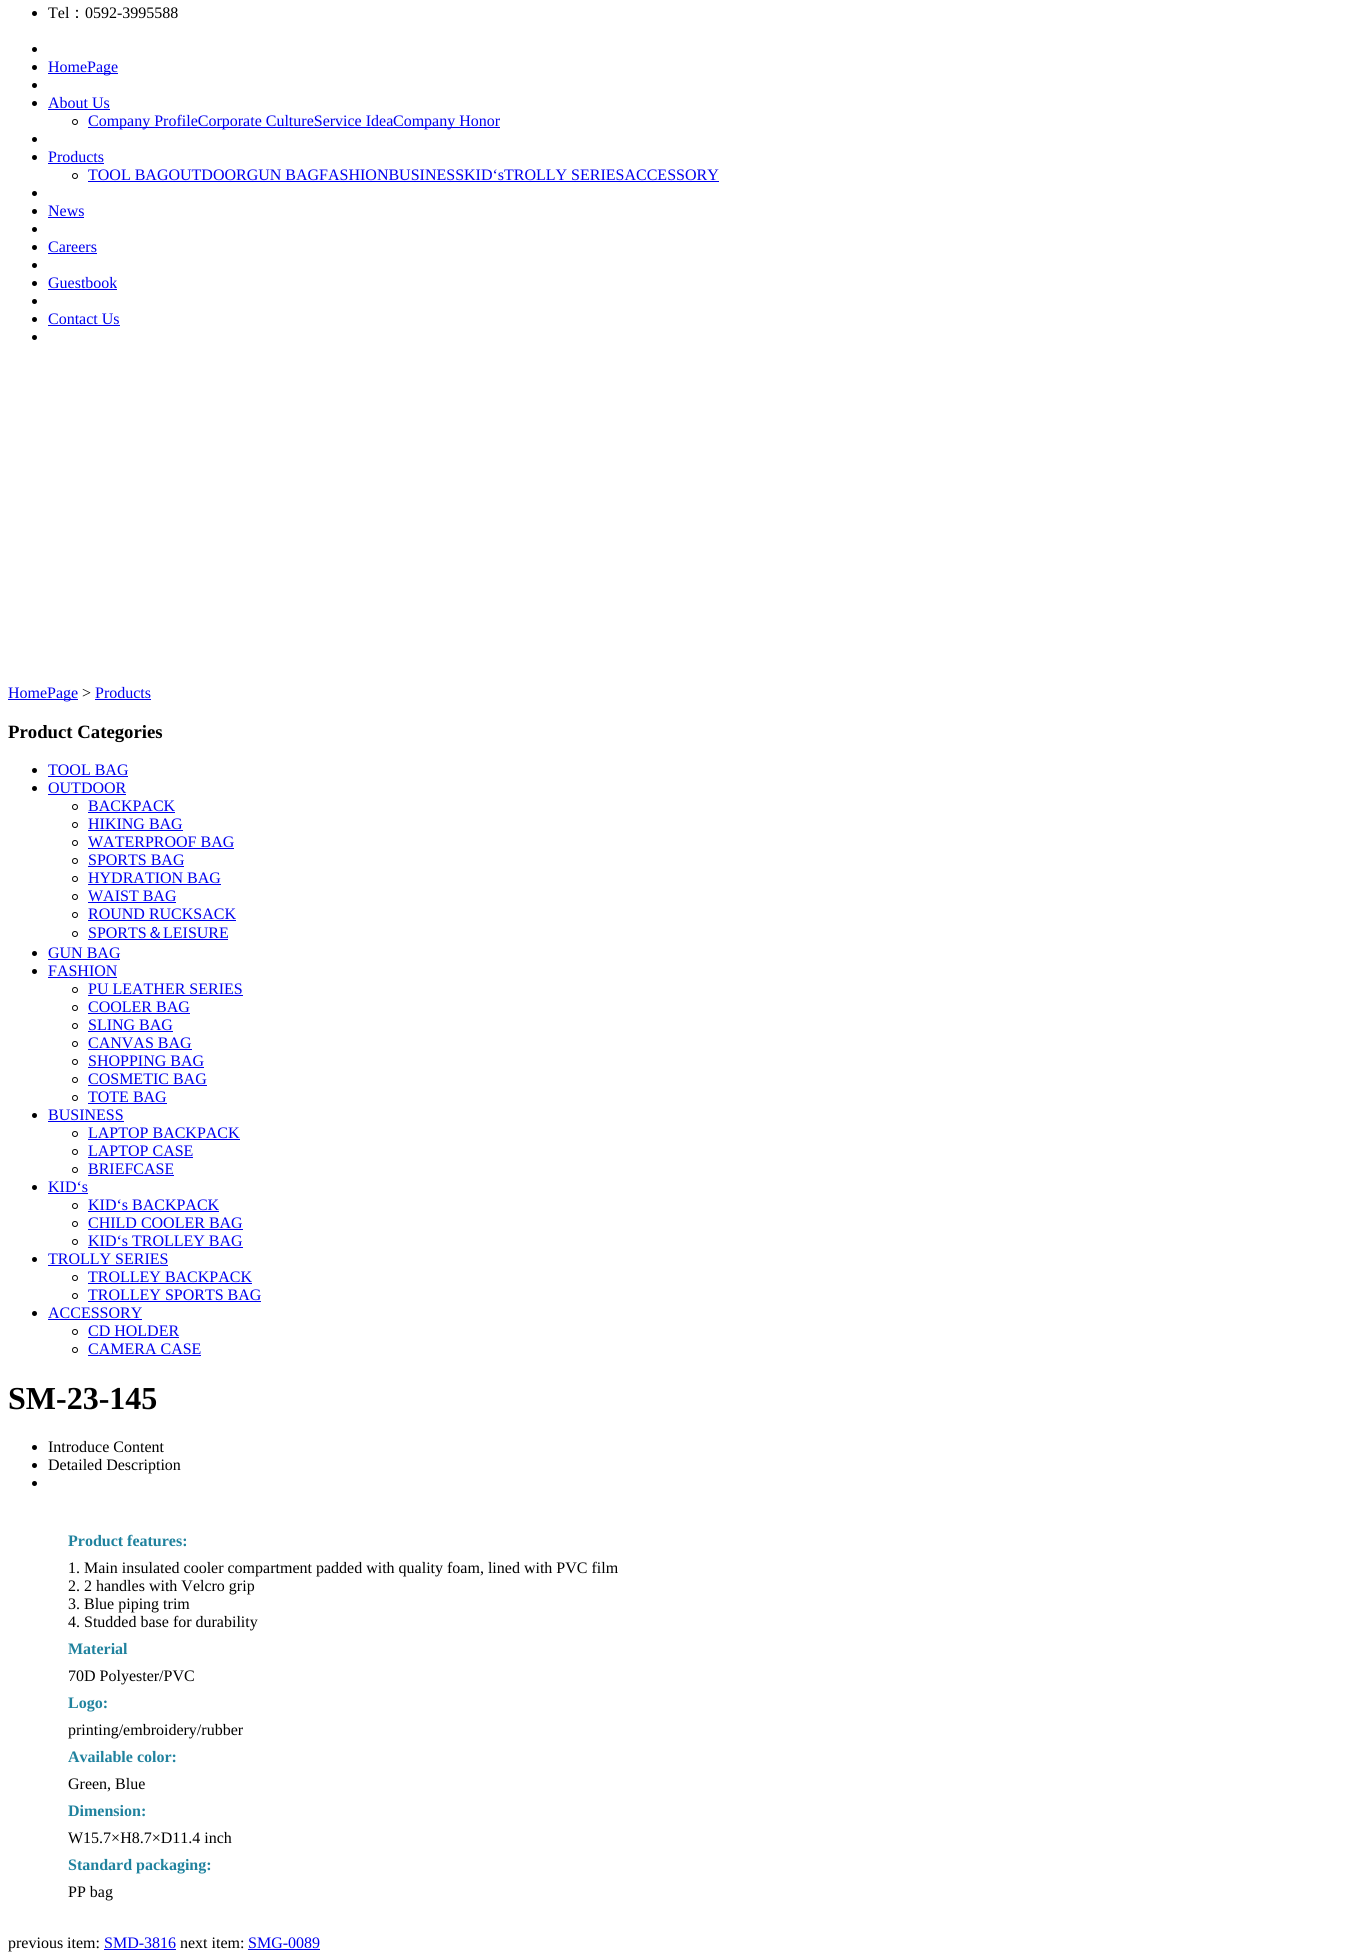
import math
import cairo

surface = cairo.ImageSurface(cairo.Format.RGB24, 1365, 1956)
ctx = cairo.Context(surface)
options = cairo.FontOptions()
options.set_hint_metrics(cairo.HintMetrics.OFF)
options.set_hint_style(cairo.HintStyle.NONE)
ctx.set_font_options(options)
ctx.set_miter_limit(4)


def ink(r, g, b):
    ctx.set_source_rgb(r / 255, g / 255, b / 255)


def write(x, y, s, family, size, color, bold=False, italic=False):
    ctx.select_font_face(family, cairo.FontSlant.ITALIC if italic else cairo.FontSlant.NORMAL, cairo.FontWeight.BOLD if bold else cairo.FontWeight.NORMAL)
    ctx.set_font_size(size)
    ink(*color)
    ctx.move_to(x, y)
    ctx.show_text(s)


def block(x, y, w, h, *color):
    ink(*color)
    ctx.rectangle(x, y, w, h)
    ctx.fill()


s1 = dict(family="Liberation Serif", size=16, color=(0, 0, 0))
s2 = dict(family="WenQuanYi Zen Hei Medium", size=16, color=(0, 0, 0))
s3 = dict(family="Liberation Serif", size=16, color=(0, 0, 238))
s4 = dict(family="Liberation Serif", size=18.75, color=(0, 0, 0), bold=True)
s5 = dict(family="WenQuanYi Zen Hei Medium", size=16, color=(0, 0, 238))
s6 = dict(family="Liberation Serif", size=32, color=(0, 0, 0), bold=True)
s7 = dict(family="Liberation Serif", size=16, color=(32, 130, 158), bold=True)

ink(255, 255, 255)
ctx.paint()
ink(0, 0, 0)
ctx.arc(34.5, 13.5, 2.5, 0, 2 * math.pi)
ctx.fill()
write(48, 18, "Tel", **s1)
write(69, 18, "：", **s2)
write(85, 18, "0592-3995588", **s1)
ctx.new_path()
ctx.arc(34.5, 49.5, 2.5, 0, 2 * math.pi)
ctx.fill()
ctx.arc(34.5, 67.5, 2.5, 0, 2 * math.pi)
ctx.fill()
block(48, 73, 70, 1, 0, 0, 238)
write(48, 72, "HomePage", **s3)
ink(0, 0, 0)
ctx.new_path()
ctx.arc(34.5, 85.5, 2.5, 0, 2 * math.pi)
ctx.fill()
ctx.arc(34.5, 103.5, 2.5, 0, 2 * math.pi)
ctx.fill()
write(48, 108, "About Us", **s3)
block(48, 109, 62, 1, 0, 0, 238)
ctx.new_path()
ctx.arc(75, 122, 2.5, 0, 2 * math.pi)
ink(0, 0, 0)
ctx.set_line_width(1)
ctx.stroke()
block(88, 127, 305, 1, 0, 0, 238)
write(88, 126, "Company ProfileCorporate CultureService Idea", **s3)
block(393, 127, 107, 1, 0, 0, 238)
write(393, 126, "Company Honor", **s3)
ink(0, 0, 0)
ctx.new_path()
ctx.arc(34.5, 139.5, 2.5, 0, 2 * math.pi)
ctx.fill()
ctx.arc(34.5, 157.5, 2.5, 0, 2 * math.pi)
ctx.fill()
write(48, 162, "Products", **s3)
block(48, 163, 56, 1, 0, 0, 238)
ctx.new_path()
ctx.arc(75, 176, 2.5, 0, 2 * math.pi)
ink(0, 0, 0)
ctx.stroke()
write(88, 180, "TOOL BAGOUTDOORGUN BAGFASHIONBUSINESSKID‘sTROLLY SERIESACCESSORY", **s3)
block(88, 181, 631, 1, 0, 0, 238)
ink(0, 0, 0)
ctx.new_path()
ctx.arc(34.5, 193.5, 2.5, 0, 2 * math.pi)
ctx.fill()
ctx.arc(34.5, 211.5, 2.5, 0, 2 * math.pi)
ctx.fill()
write(48, 216, "News", **s3)
block(48, 217, 36, 1, 0, 0, 238)
ink(0, 0, 0)
ctx.new_path()
ctx.arc(34.5, 229.5, 2.5, 0, 2 * math.pi)
ctx.fill()
ctx.arc(34.5, 247.5, 2.5, 0, 2 * math.pi)
ctx.fill()
write(48, 252, "Careers", **s3)
block(48, 253, 49, 1, 0, 0, 238)
ink(0, 0, 0)
ctx.new_path()
ctx.arc(34.5, 265.5, 2.5, 0, 2 * math.pi)
ctx.fill()
ctx.arc(34.5, 283.5, 2.5, 0, 2 * math.pi)
ctx.fill()
write(48, 288, "Guestbook", **s3)
block(48, 289, 69, 1, 0, 0, 238)
ink(0, 0, 0)
ctx.new_path()
ctx.arc(34.5, 301.5, 2.5, 0, 2 * math.pi)
ctx.fill()
ctx.arc(34.5, 319.5, 2.5, 0, 2 * math.pi)
ctx.fill()
write(48, 324, "Contact Us", **s3)
block(48, 325, 72, 1, 0, 0, 238)
ink(0, 0, 0)
ctx.new_path()
ctx.arc(34.5, 337.5, 2.5, 0, 2 * math.pi)
ctx.fill()
block(8, 699, 70, 1, 0, 0, 238)
write(8, 698, "HomePage", **s3)
write(82, 698, ">", **s1)
write(95, 698, "Products", **s3)
block(95, 699, 56, 1, 0, 0, 238)
write(8, 738, "Product Categories", **s4)
ctx.new_path()
ctx.arc(34.5, 770.5, 2.5, 0, 2 * math.pi)
ctx.fill()
write(48, 775, "TOOL BAG", **s3)
block(48, 776, 80, 1, 0, 0, 238)
ink(0, 0, 0)
ctx.new_path()
ctx.arc(34.5, 788.5, 2.5, 0, 2 * math.pi)
ctx.fill()
write(48, 793, "OUTDOOR", **s3)
block(48, 794, 78, 1, 0, 0, 238)
ctx.new_path()
ctx.arc(75, 807, 2.5, 0, 2 * math.pi)
ink(0, 0, 0)
ctx.stroke()
write(88, 811, "BACKPACK", **s3)
block(88, 812, 87, 1, 0, 0, 238)
ctx.new_path()
ctx.arc(75, 825, 2.5, 0, 2 * math.pi)
ink(0, 0, 0)
ctx.stroke()
write(88, 829, "HIKING BAG", **s3)
block(88, 830, 95, 1, 0, 0, 238)
ctx.new_path()
ctx.arc(75, 843, 2.5, 0, 2 * math.pi)
ink(0, 0, 0)
ctx.stroke()
write(88, 847, "WATERPROOF BAG", **s3)
block(88, 848, 146, 1, 0, 0, 238)
ctx.new_path()
ctx.arc(75, 861, 2.5, 0, 2 * math.pi)
ink(0, 0, 0)
ctx.stroke()
write(88, 865, "SPORTS BAG", **s3)
block(88, 866, 96, 1, 0, 0, 238)
ctx.new_path()
ctx.arc(75, 879, 2.5, 0, 2 * math.pi)
ink(0, 0, 0)
ctx.stroke()
write(88, 883, "HYDRATION BAG", **s3)
block(88, 884, 133, 1, 0, 0, 238)
ctx.new_path()
ctx.arc(75, 897, 2.5, 0, 2 * math.pi)
ink(0, 0, 0)
ctx.stroke()
write(88, 901, "WAIST BAG", **s3)
block(88, 902, 88, 1, 0, 0, 238)
ctx.new_path()
ctx.arc(75, 915, 2.5, 0, 2 * math.pi)
ink(0, 0, 0)
ctx.stroke()
write(88, 919, "ROUND RUCKSACK", **s3)
block(88, 920, 148, 1, 0, 0, 238)
ctx.new_path()
ctx.arc(75, 934, 2.5, 0, 2 * math.pi)
ink(0, 0, 0)
ctx.stroke()
write(88, 938, "SPORTS", **s3)
block(88, 939, 140, 1, 0, 0, 238)
write(147, 938, "＆", **s5)
write(163, 938, "LEISURE", **s3)
ink(0, 0, 0)
ctx.new_path()
ctx.arc(34.5, 953.5, 2.5, 0, 2 * math.pi)
ctx.fill()
write(48, 958, "GUN BAG", **s3)
block(48, 959, 72, 1, 0, 0, 238)
ink(0, 0, 0)
ctx.new_path()
ctx.arc(34.5, 971.5, 2.5, 0, 2 * math.pi)
ctx.fill()
write(48, 976, "FASHION", **s3)
block(48, 977, 69, 1, 0, 0, 238)
ctx.new_path()
ctx.arc(75, 990, 2.5, 0, 2 * math.pi)
ink(0, 0, 0)
ctx.stroke()
write(88, 994, "PU LEATHER SERIES", **s3)
block(88, 995, 155, 1, 0, 0, 238)
ctx.new_path()
ctx.arc(75, 1008, 2.5, 0, 2 * math.pi)
ink(0, 0, 0)
ctx.stroke()
write(88, 1012, "COOLER BAG", **s3)
block(88, 1013, 102, 1, 0, 0, 238)
ctx.new_path()
ctx.arc(75, 1026, 2.5, 0, 2 * math.pi)
ink(0, 0, 0)
ctx.stroke()
write(88, 1030, "SLING BAG", **s3)
block(88, 1031, 85, 1, 0, 0, 238)
ctx.new_path()
ctx.arc(75, 1044, 2.5, 0, 2 * math.pi)
ink(0, 0, 0)
ctx.stroke()
write(88, 1048, "CANVAS BAG", **s3)
block(88, 1049, 104, 1, 0, 0, 238)
ctx.new_path()
ctx.arc(75, 1062, 2.5, 0, 2 * math.pi)
ink(0, 0, 0)
ctx.stroke()
write(88, 1066, "SHOPPING BAG", **s3)
block(88, 1067, 116, 1, 0, 0, 238)
ctx.new_path()
ctx.arc(75, 1080, 2.5, 0, 2 * math.pi)
ink(0, 0, 0)
ctx.stroke()
write(88, 1084, "COSMETIC BAG", **s3)
block(88, 1085, 119, 1, 0, 0, 238)
ctx.new_path()
ctx.arc(75, 1098, 2.5, 0, 2 * math.pi)
ink(0, 0, 0)
ctx.stroke()
write(88, 1102, "TOTE BAG", **s3)
block(88, 1103, 79, 1, 0, 0, 238)
ink(0, 0, 0)
ctx.new_path()
ctx.arc(34.5, 1115.5, 2.5, 0, 2 * math.pi)
ctx.fill()
write(48, 1120, "BUSINESS", **s3)
block(48, 1121, 76, 1, 0, 0, 238)
ctx.new_path()
ctx.arc(75, 1134, 2.5, 0, 2 * math.pi)
ink(0, 0, 0)
ctx.stroke()
write(88, 1138, "LAPTOP BACKPACK", **s3)
block(88, 1139, 152, 1, 0, 0, 238)
ctx.new_path()
ctx.arc(75, 1152, 2.5, 0, 2 * math.pi)
ink(0, 0, 0)
ctx.stroke()
write(88, 1156, "LAPTOP CASE", **s3)
block(88, 1157, 105, 1, 0, 0, 238)
ctx.new_path()
ctx.arc(75, 1170, 2.5, 0, 2 * math.pi)
ink(0, 0, 0)
ctx.stroke()
write(88, 1174, "BRIEFCASE", **s3)
block(88, 1175, 86, 1, 0, 0, 238)
ink(0, 0, 0)
ctx.new_path()
ctx.arc(34.5, 1187.5, 2.5, 0, 2 * math.pi)
ctx.fill()
write(48, 1192, "KID‘s", **s3)
block(48, 1193, 40, 1, 0, 0, 238)
ctx.new_path()
ctx.arc(75, 1206, 2.5, 0, 2 * math.pi)
ink(0, 0, 0)
ctx.stroke()
write(88, 1210, "KID‘s BACKPACK", **s3)
block(88, 1211, 131, 1, 0, 0, 238)
ctx.new_path()
ctx.arc(75, 1224, 2.5, 0, 2 * math.pi)
ink(0, 0, 0)
ctx.stroke()
write(88, 1228, "CHILD COOLER BAG", **s3)
block(88, 1229, 155, 1, 0, 0, 238)
ctx.new_path()
ctx.arc(75, 1242, 2.5, 0, 2 * math.pi)
ink(0, 0, 0)
ctx.stroke()
write(88, 1246, "KID‘s TROLLEY BAG", **s3)
block(88, 1247, 155, 1, 0, 0, 238)
ink(0, 0, 0)
ctx.new_path()
ctx.arc(34.5, 1259.5, 2.5, 0, 2 * math.pi)
ctx.fill()
write(48, 1264, "TROLLY SERIES", **s3)
block(48, 1265, 120, 1, 0, 0, 238)
ctx.new_path()
ctx.arc(75, 1278, 2.5, 0, 2 * math.pi)
ink(0, 0, 0)
ctx.stroke()
write(88, 1282, "TROLLEY BACKPACK", **s3)
block(88, 1283, 164, 1, 0, 0, 238)
ctx.new_path()
ctx.arc(75, 1296, 2.5, 0, 2 * math.pi)
ink(0, 0, 0)
ctx.stroke()
write(88, 1300, "TROLLEY SPORTS BAG", **s3)
block(88, 1301, 173, 1, 0, 0, 238)
ink(0, 0, 0)
ctx.new_path()
ctx.arc(34.5, 1313.5, 2.5, 0, 2 * math.pi)
ctx.fill()
write(48, 1318, "ACCESSORY", **s3)
block(48, 1319, 94, 1, 0, 0, 238)
ctx.new_path()
ctx.arc(75, 1332, 2.5, 0, 2 * math.pi)
ink(0, 0, 0)
ctx.stroke()
write(88, 1336, "CD HOLDER", **s3)
block(88, 1337, 91, 1, 0, 0, 238)
ctx.new_path()
ctx.arc(75, 1350, 2.5, 0, 2 * math.pi)
ink(0, 0, 0)
ctx.stroke()
write(88, 1354, "CAMERA CASE", **s3)
block(88, 1355, 113, 1, 0, 0, 238)
write(8, 1409, "SM-23-145", **s6)
ctx.new_path()
ctx.arc(34.5, 1447.5, 2.5, 0, 2 * math.pi)
ctx.fill()
write(48, 1452, "Introduce Content", **s1)
ctx.new_path()
ctx.arc(34.5, 1465.5, 2.5, 0, 2 * math.pi)
ctx.fill()
write(48, 1470, "Detailed Description", **s1)
ctx.new_path()
ctx.arc(34.5, 1483.5, 2.5, 0, 2 * math.pi)
ctx.fill()
write(68, 1546, "Product features:", **s7)
write(68, 1573, "1. Main insulated cooler compartment padded with quality foam, lined with PVC film", **s1)
write(68, 1591, "2. 2 handles with Velcro grip", **s1)
write(68, 1609, "3. Blue piping trim", **s1)
write(68, 1627, "4. Studded base for durability", **s1)
write(68, 1654, "Material", **s7)
write(68, 1681, "70D Polyester/PVC", **s1)
write(68, 1708, "Logo:", **s7)
write(68, 1735, "printing/embroidery/rubber", **s1)
write(68, 1762, "Available color:", **s7)
write(68, 1789, "Green, Blue", **s1)
write(68, 1816, "Dimension:", **s7)
write(68, 1843, "W15.7×H8.7×D11.4 inch", **s1)
write(68, 1870, "Standard packaging:", **s7)
write(68, 1897, "PP bag", **s1)
write(8, 1948, "previous item:", **s1)
write(104, 1948, "SMD-3816", **s3)
block(104, 1949, 72, 1, 0, 0, 238)
write(180, 1948, "next item:", **s1)
write(248, 1948, "SMG-0089", **s3)
block(248, 1949, 72, 1, 0, 0, 238)
surface.write_to_png("screenshot.png")
